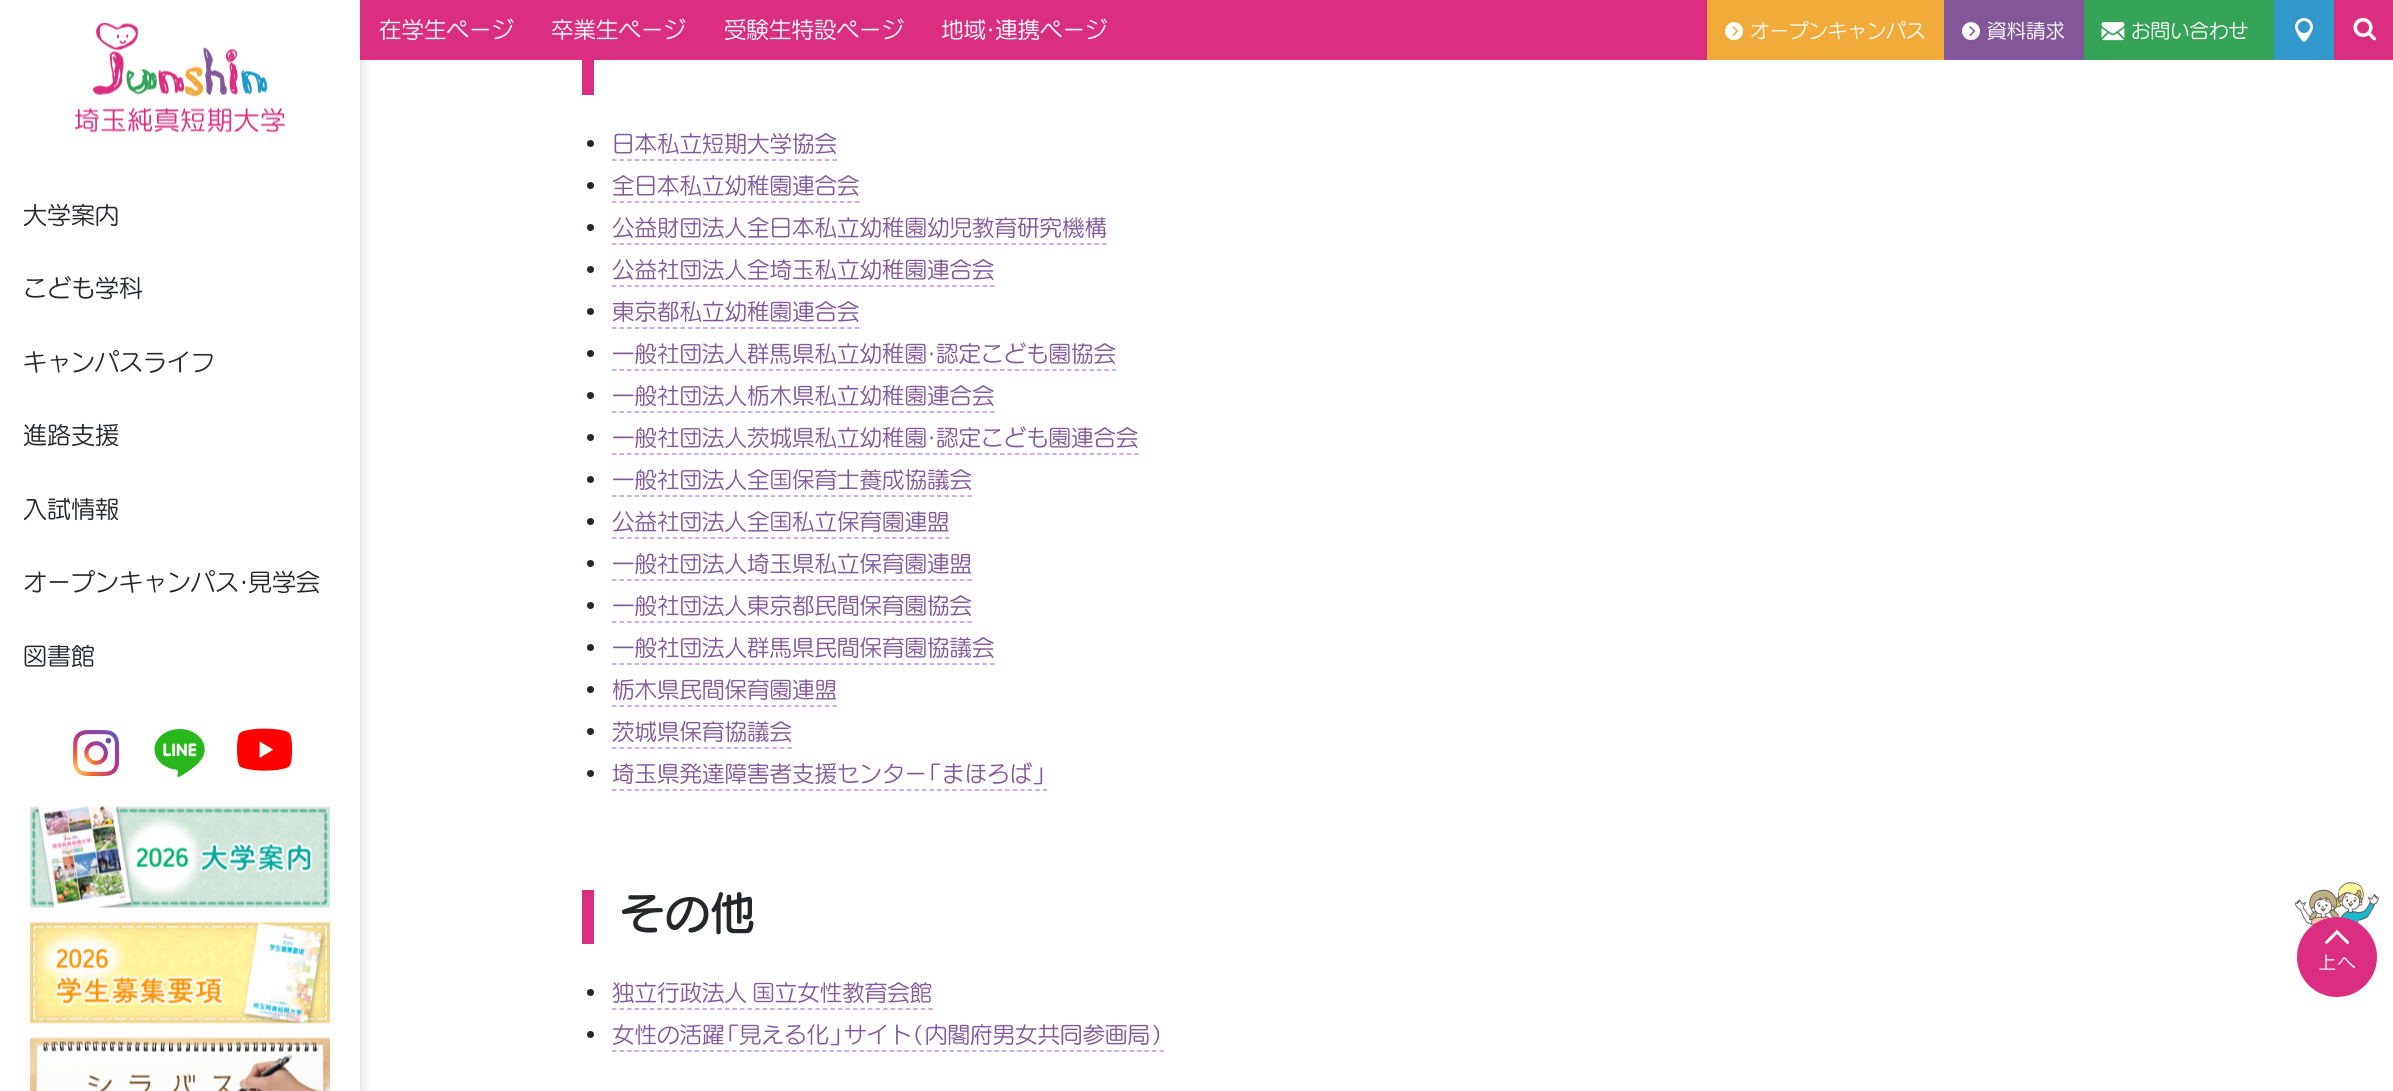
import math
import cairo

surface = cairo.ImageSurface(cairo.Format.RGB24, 2393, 1091)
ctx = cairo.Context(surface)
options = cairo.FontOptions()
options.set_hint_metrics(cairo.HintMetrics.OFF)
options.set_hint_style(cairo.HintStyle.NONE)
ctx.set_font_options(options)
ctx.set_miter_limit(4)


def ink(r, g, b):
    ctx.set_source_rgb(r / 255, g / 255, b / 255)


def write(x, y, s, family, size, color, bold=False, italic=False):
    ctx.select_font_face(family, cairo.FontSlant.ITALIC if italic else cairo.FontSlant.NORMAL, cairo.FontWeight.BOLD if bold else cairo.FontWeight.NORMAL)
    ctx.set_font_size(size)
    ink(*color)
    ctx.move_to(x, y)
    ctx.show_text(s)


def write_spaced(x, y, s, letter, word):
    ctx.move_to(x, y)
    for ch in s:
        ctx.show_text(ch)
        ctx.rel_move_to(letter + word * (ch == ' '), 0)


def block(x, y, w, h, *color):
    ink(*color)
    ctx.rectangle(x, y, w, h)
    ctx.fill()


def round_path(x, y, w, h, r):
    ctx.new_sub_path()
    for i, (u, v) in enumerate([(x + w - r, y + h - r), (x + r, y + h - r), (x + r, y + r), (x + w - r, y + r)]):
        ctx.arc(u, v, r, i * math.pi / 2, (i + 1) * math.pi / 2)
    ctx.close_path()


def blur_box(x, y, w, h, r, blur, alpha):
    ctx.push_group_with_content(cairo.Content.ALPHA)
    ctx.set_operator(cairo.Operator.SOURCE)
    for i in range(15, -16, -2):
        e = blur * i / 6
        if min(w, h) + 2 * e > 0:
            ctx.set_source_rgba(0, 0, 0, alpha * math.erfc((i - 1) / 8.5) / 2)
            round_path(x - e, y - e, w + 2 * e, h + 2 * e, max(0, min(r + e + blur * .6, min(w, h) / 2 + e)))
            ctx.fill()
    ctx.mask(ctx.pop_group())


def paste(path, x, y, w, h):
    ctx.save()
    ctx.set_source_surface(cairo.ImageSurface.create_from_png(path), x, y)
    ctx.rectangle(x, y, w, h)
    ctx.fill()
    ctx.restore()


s1 = dict(family="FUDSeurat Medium", size=22.5, color=(255, 255, 255))
s2 = dict(family="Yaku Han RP", size=22.5, color=(255, 255, 255))
s3 = dict(family="FUDSeurat Medium", size=19.5, color=(255, 255, 255))
s4 = dict(family="FUDSeurat Medium", size=24, color=(37, 40, 42))
s5 = dict(family="Yaku Han RP", size=24, color=(37, 40, 42))
s6 = dict(family="FUDSeurat Medium", size=22.5, color=(130, 89, 155))
s7 = dict(family="Yaku Han RP", size=22.5, color=(130, 89, 155))
s8 = dict(family="FUDSeurat SemiBold", size=45, color=(37, 40, 42))

ink(255, 255, 255)
ctx.paint()
ctx.save()
ctx.rectangle(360, 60, 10, 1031)
ctx.clip()
ink(0, 0, 0)
blur_box(0, 0, 360, 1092, 0, 7.5, 0.2)
ctx.restore()
block(360, 0, 1347, 60, 219, 46, 128)
write(379, 38, "在学生ページ", **s1)
write(551, 38, "卒業生ページ", **s1)
write(724, 38, "受験生特設ページ", **s1)
write(941, 38, "地域", **s1)
write(986, 38, "・", **s2)
write(995, 38, "連携ページ", **s1)
block(1707, 0, 237, 60, 241, 171, 59)
paste("pic1.png", 1725, 22, 18, 19)
write(1750, 38, "オープンキャンパス", **s3)
block(1944, 0, 140, 60, 130, 88, 155)
paste("pic2.png", 1962, 22, 18, 19)
write(1987, 38, "資料請求", **s3)
block(2084, 0, 190, 60, 53, 164, 88)
paste("pic3.png", 2101, 22, 24, 19)
write(2131, 38, "お問い合わせ", **s3)
block(2274, 0, 60, 60, 51, 153, 204)
paste("pic4.png", 2295, 18, 18, 24)
block(2334, 0, 59, 60, 219, 46, 128)
paste("pic5.png", 2353, 17, 23, 24)
paste("pic6.png", 75, 23, 210, 110)
write(23, 224, "大学案内", **s4)
write(23, 297, "こども学科", **s4)
write(23, 371, "キャンパスライフ", **s4)
write(23, 444, "進路支援", **s4)
write(23, 518, "入試情報", **s4)
write(23, 591, "オープンキャンパス", **s4)
write(239, 591, "・", **s5)
write(248, 591, "見学会", **s4)
write(23, 665, "図書館", **s4)
paste("pic7.png", 73, 730, 47, 47)
paste("pic8.png", 154, 729, 51, 48)
paste("pic9.png", 237, 728, 56, 43)
paste("pic10.png", 30, 806, 300, 102)
paste("pic11.png", 30, 922, 300, 102)
paste("pic12.png", 30, 1037, 300, 54)
block(582, 60, 12, 35, 219, 46, 128)
ink(37, 40, 42)
ctx.arc(590.5, 143.5, 3.5, 0, 2 * math.pi)
ctx.fill()
write(612, 152, "日本私立短期大学協会", **s6)
ctx.new_path()
ctx.move_to(612, 160)
ctx.line_to(837, 160)
ink(191, 148, 218)
ctx.set_line_width(1.5)
ctx.set_dash([4.5, 3.1])
ctx.stroke()
ink(37, 40, 42)
ctx.arc(590.5, 185.5, 3.5, 0, 2 * math.pi)
ctx.fill()
write(612, 194, "全日本私立幼稚園連合会", **s6)
ctx.new_path()
ctx.move_to(612, 202)
ctx.line_to(859.5, 202)
ink(191, 148, 218)
ctx.set_dash([4.5, 3.09])
ctx.stroke()
ink(37, 40, 42)
ctx.arc(590.5, 227.5, 3.5, 0, 2 * math.pi)
ctx.fill()
write(612, 236, "公益財団法人全日本私立幼稚園幼児教育研究機構", **s6)
ctx.new_path()
ctx.move_to(612, 244)
ctx.line_to(1107, 244)
ink(191, 148, 218)
ctx.set_dash([4.5, 3.04])
ctx.stroke()
ink(37, 40, 42)
ctx.arc(590.5, 269.5, 3.5, 0, 2 * math.pi)
ctx.fill()
write(612, 278, "公益社団法人全埼玉私立幼稚園連合会", **s6)
ctx.new_path()
ctx.move_to(612, 286)
ctx.line_to(994.5, 286)
ink(191, 148, 218)
ctx.set_dash([4.5, 3.06])
ctx.stroke()
ink(37, 40, 42)
ctx.arc(590.5, 311.5, 3.5, 0, 2 * math.pi)
ctx.fill()
write(612, 320, "東京都私立幼稚園連合会", **s6)
ctx.new_path()
ctx.move_to(612, 328)
ctx.line_to(859.5, 328)
ink(191, 148, 218)
ctx.set_dash([4.5, 3.09])
ctx.stroke()
ink(37, 40, 42)
ctx.arc(590.5, 353.5, 3.5, 0, 2 * math.pi)
ctx.fill()
write(612, 362, "一般社団法人群馬県私立幼稚園", **s6)
write(927, 362, "・", **s7)
ctx.new_path()
ctx.move_to(612, 370)
ctx.line_to(1116, 370)
ink(191, 148, 218)
ctx.set_dash([4.5, 2.96])
ctx.stroke()
write(936, 362, "認定こども園協会", **s6)
ink(37, 40, 42)
ctx.new_path()
ctx.arc(590.5, 395.5, 3.5, 0, 2 * math.pi)
ctx.fill()
write(612, 404, "一般社団法人栃木県私立幼稚園連合会", **s6)
ctx.new_path()
ctx.move_to(612, 412)
ctx.line_to(994.5, 412)
ink(191, 148, 218)
ctx.set_dash([4.5, 3.06])
ctx.stroke()
ink(37, 40, 42)
ctx.arc(590.5, 437.5, 3.5, 0, 2 * math.pi)
ctx.fill()
write(612, 446, "一般社団法人茨城県私立幼稚園", **s6)
write(927, 446, "・", **s7)
ctx.new_path()
ctx.move_to(612, 454)
ctx.line_to(1138.5, 454)
ink(191, 148, 218)
ctx.set_dash([4.5, 2.96])
ctx.stroke()
write(936, 446, "認定こども園連合会", **s6)
ink(37, 40, 42)
ctx.new_path()
ctx.arc(590.5, 479.5, 3.5, 0, 2 * math.pi)
ctx.fill()
write(612, 488, "一般社団法人全国保育士養成協議会", **s6)
ctx.new_path()
ctx.move_to(612, 496)
ctx.line_to(972, 496)
ink(191, 148, 218)
ctx.set_dash([4.5, 3.06])
ctx.stroke()
ink(37, 40, 42)
ctx.arc(590.5, 521.5, 3.5, 0, 2 * math.pi)
ctx.fill()
write(612, 530, "公益社団法人全国私立保育園連盟", **s6)
ctx.new_path()
ctx.move_to(612, 538)
ctx.line_to(949.5, 538)
ink(191, 148, 218)
ctx.set_dash([4.5, 3.07])
ctx.stroke()
ink(37, 40, 42)
ctx.arc(590.5, 563.5, 3.5, 0, 2 * math.pi)
ctx.fill()
write(612, 572, "一般社団法人埼玉県私立保育園連盟", **s6)
ctx.new_path()
ctx.move_to(612, 580)
ctx.line_to(972, 580)
ink(191, 148, 218)
ctx.set_dash([4.5, 3.06])
ctx.stroke()
ink(37, 40, 42)
ctx.arc(590.5, 605.5, 3.5, 0, 2 * math.pi)
ctx.fill()
write(612, 614, "一般社団法人東京都民間保育園協会", **s6)
ctx.new_path()
ctx.move_to(612, 622)
ctx.line_to(972, 622)
ink(191, 148, 218)
ctx.stroke()
ink(37, 40, 42)
ctx.arc(590.5, 647.5, 3.5, 0, 2 * math.pi)
ctx.fill()
write(612, 656, "一般社団法人群馬県民間保育園協議会", **s6)
ctx.new_path()
ctx.move_to(612, 664)
ctx.line_to(994.5, 664)
ink(191, 148, 218)
ctx.stroke()
ink(37, 40, 42)
ctx.arc(590.5, 689.5, 3.5, 0, 2 * math.pi)
ctx.fill()
write(612, 698, "栃木県民間保育園連盟", **s6)
ctx.new_path()
ctx.move_to(612, 706)
ctx.line_to(837, 706)
ink(191, 148, 218)
ctx.set_dash([4.5, 3.1])
ctx.stroke()
ink(37, 40, 42)
ctx.arc(590.5, 731.5, 3.5, 0, 2 * math.pi)
ctx.fill()
write(612, 740, "茨城県保育協議会", **s6)
ctx.new_path()
ctx.move_to(612, 748)
ctx.line_to(792, 748)
ink(191, 148, 218)
ctx.set_dash([4.5, 3.13])
ctx.stroke()
ink(37, 40, 42)
ctx.arc(590.5, 773.5, 3.5, 0, 2 * math.pi)
ctx.fill()
write(612, 782, "埼玉県発達障害者支援センター", **s6)
write(927, 782, "「", **s7)
write(942, 782, "まほろば", **s6)
write(1032, 782, "」", **s7)
ctx.new_path()
ctx.move_to(612, 790)
ctx.line_to(1047, 790)
ink(191, 148, 218)
ctx.set_dash([4.5, 3.06])
ctx.stroke()
block(582, 890, 12, 54, 219, 46, 128)
write(620, 930, "その他", **s8)
ctx.new_path()
ctx.arc(590.5, 992.5, 3.5, 0, 2 * math.pi)
ctx.fill()
ctx.select_font_face("FUDSeurat Medium")
ctx.set_font_size(22.5)
ink(130, 89, 155)
write_spaced(612, 1001, "独立行政法人 国立女性教育会館", 0, -2)
ctx.new_path()
ctx.move_to(612, 1009)
ctx.line_to(933, 1009)
ink(191, 148, 218)
ctx.set_dash([4.5, 3.03])
ctx.stroke()
ink(37, 40, 42)
ctx.arc(590.5, 1034.5, 3.5, 0, 2 * math.pi)
ctx.fill()
write(612, 1043, "女性の活躍", **s6)
write(725, 1043, "「", **s7)
write(739, 1043, "見える化", **s6)
write(829, 1043, "」", **s7)
ctx.new_path()
ctx.move_to(612, 1051)
ctx.line_to(1164, 1051)
ink(191, 148, 218)
ctx.set_dash([4.5, 3])
ctx.stroke()
write(844, 1043, "サイト", **s6)
write(911, 1043, "（", **s7)
write(925, 1043, "内閣府男女共同参画局", **s6)
write(1150, 1043, "）", **s7)
paste("pic13.png", 2295, 882, 84, 44)
paste("pic14.png", 2297, 917, 80, 80)
surface.write_to_png("screenshot.png")
